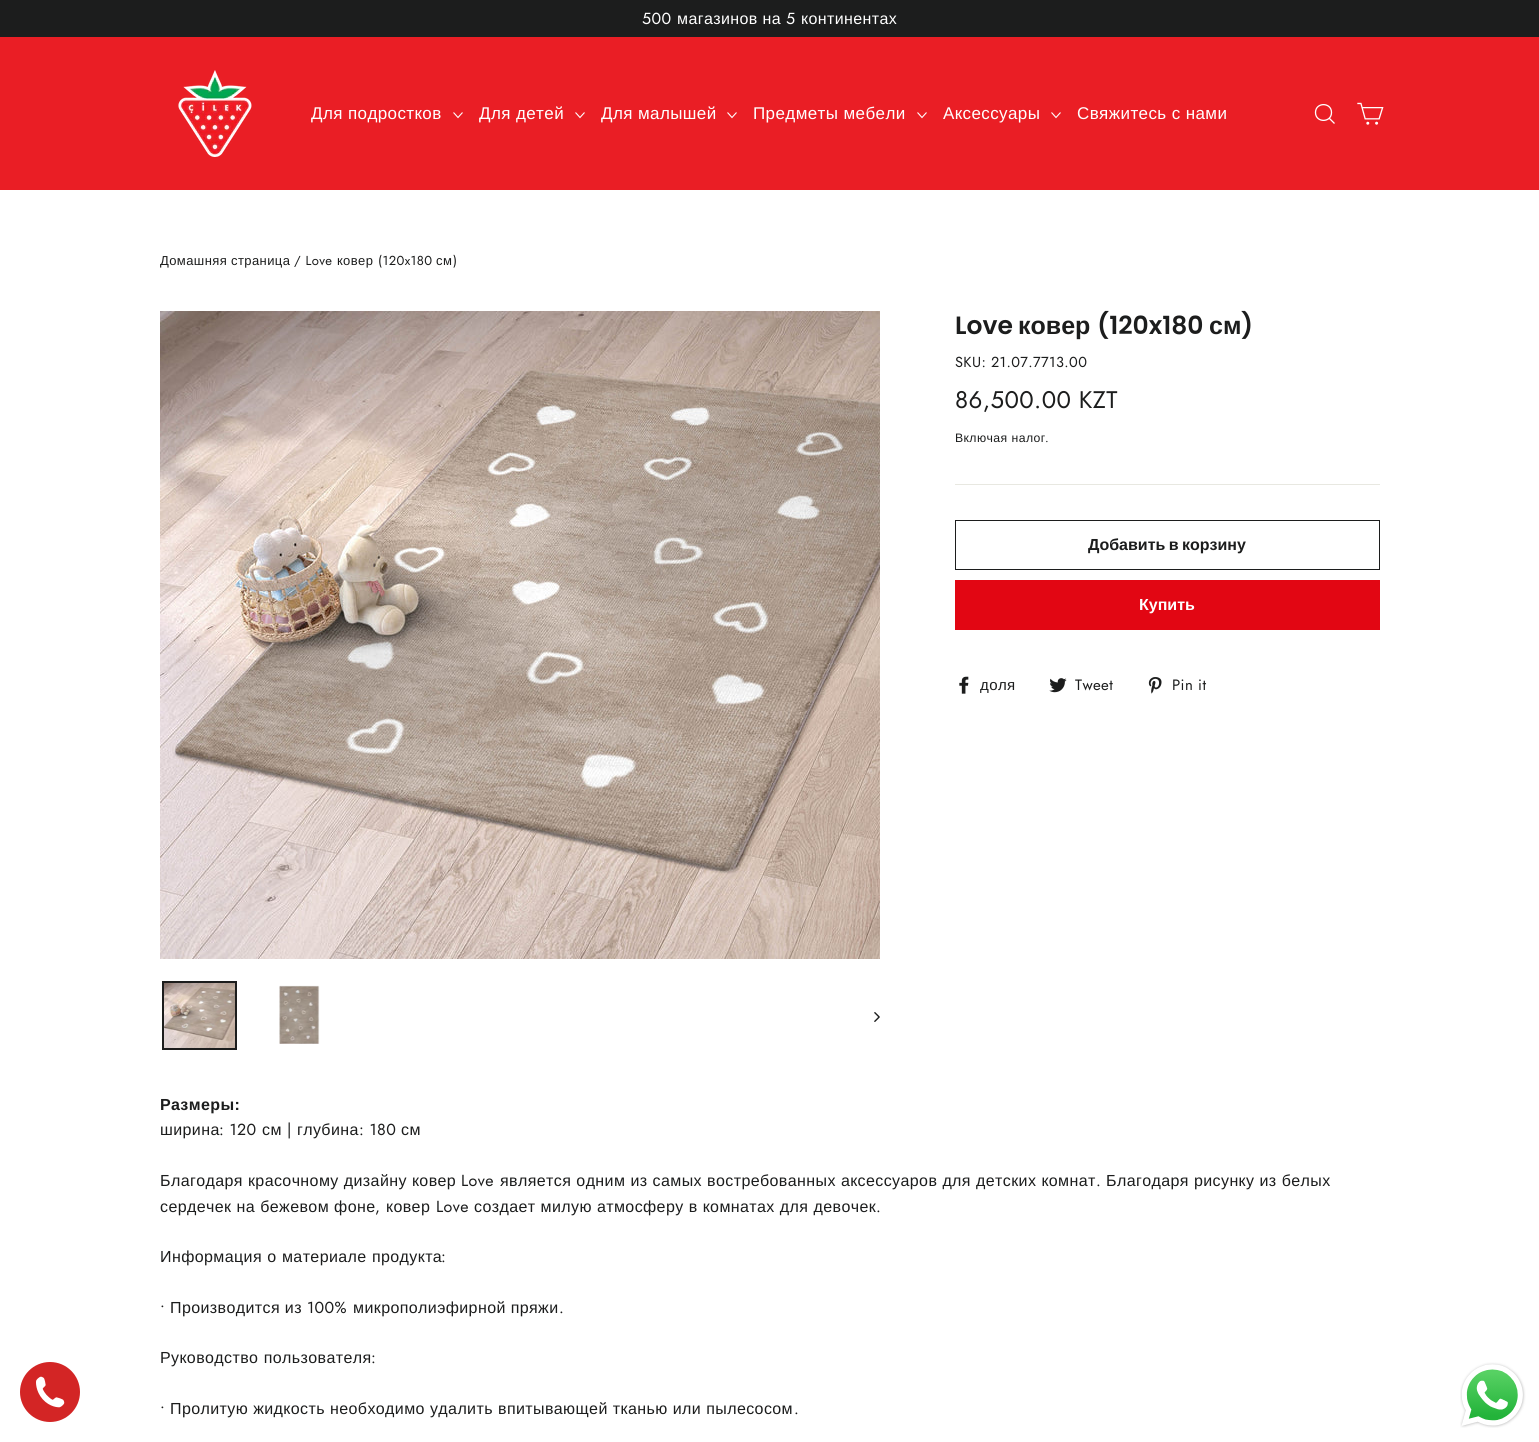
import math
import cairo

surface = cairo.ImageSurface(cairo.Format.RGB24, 1539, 1442)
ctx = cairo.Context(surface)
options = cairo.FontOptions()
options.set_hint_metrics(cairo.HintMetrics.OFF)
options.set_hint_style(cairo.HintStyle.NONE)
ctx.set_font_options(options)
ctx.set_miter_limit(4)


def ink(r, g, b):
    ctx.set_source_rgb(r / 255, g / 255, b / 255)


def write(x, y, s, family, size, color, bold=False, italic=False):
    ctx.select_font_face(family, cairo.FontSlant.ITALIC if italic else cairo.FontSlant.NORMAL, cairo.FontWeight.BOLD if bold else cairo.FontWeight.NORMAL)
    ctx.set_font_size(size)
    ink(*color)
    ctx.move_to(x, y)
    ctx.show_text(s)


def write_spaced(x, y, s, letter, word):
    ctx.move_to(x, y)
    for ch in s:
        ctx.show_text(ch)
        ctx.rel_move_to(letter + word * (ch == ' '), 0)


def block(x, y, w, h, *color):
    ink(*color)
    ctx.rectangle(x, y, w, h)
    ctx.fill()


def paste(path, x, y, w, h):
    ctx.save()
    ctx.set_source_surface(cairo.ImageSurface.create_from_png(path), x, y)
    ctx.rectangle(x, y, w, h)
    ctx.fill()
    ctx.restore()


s1 = dict(family="Poppins SemiBold", size=25, color=(28, 29, 29))
s2 = dict(family="Liberation Sans", size=25, color=(28, 29, 29), bold=True)
s3 = dict(family="Liberation Sans", size=16, color=(255, 255, 255), bold=True)

ink(255, 255, 255)
ctx.paint()
ink(211, 37, 37)
ctx.arc(50, 1392, 30, 0, 2 * math.pi)
ctx.fill()
paste("pic1.png", 36, 1376, 29, 32)
block(0, 0, 1539, 37, 28, 29, 29)
ctx.select_font_face("Jost")
ctx.set_font_size(16)
ink(255, 255, 255)
write_spaced(642, 24, "500", 0.4, 0)
ctx.select_font_face("Liberation Sans")
write_spaced(677, 24, "магазинов на", 0.4, 0)
ctx.select_font_face("Jost")
write_spaced(786, 24, "5", 0.4, 0)
ctx.select_font_face("Liberation Sans")
write_spaced(801, 24, "континентах", 0.4, 0)
block(0, 37, 1539, 153, 234, 30, 37)
paste("pic2.png", 178, 70, 74, 87)
ctx.set_font_size(17)
ink(255, 255, 255)
write_spaced(311, 119, "Для подростков", 0.4, 0)
ctx.new_path()
ctx.move_to(453.5, 112.5)
ctx.line_to(458, 117.5)
ctx.line_to(462.5, 112.5)
ctx.set_line_width(1.1)
ctx.stroke()
write_spaced(479, 119, "Для детей", 0.4, 0)
ctx.new_path()
ctx.move_to(575.5, 112.5)
ctx.line_to(580, 117.5)
ctx.line_to(584.5, 112.5)
ctx.stroke()
write_spaced(601, 119, "Для малышей", 0.4, 0)
ctx.new_path()
ctx.move_to(727.5, 112.5)
ctx.line_to(732, 117.5)
ctx.line_to(736.5, 112.5)
ctx.stroke()
write_spaced(753, 119, "Предметы мебели", 0.4, 0)
ctx.new_path()
ctx.move_to(917.5, 112.5)
ctx.line_to(922, 117.5)
ctx.line_to(926.5, 112.5)
ctx.stroke()
write_spaced(943, 119, "Аксессуары", 0.4, 0)
ctx.new_path()
ctx.move_to(1051.5, 112.5)
ctx.line_to(1056, 117.5)
ctx.line_to(1060.5, 112.5)
ctx.stroke()
write_spaced(1077, 119, "Свяжитесь с нами", 0.4, 0)
ctx.new_path()
ctx.move_to(1331.5, 112.5)
ctx.curve_to(1331.5, 123, 1315.5, 123, 1315.5, 112.5)
ctx.curve_to(1315.5, 102, 1331.5, 102, 1331.5, 112.5)
ctx.close_path()
ctx.move_to(1334.5, 123.5)
ctx.line_to(1329.5, 118.5)
ctx.set_line_width(1.3)
ctx.stroke()
paste("pic3.png", 1357, 102, 27, 23)
ctx.set_font_size(13)
ink(28, 29, 29)
write_spaced(160, 265, "Домашняя страница", 0.4, 0)
ctx.select_font_face("Jost")
write_spaced(294, 265, "/ Love", 0.4, 0)
ctx.select_font_face("Liberation Sans")
write_spaced(337, 265, "ковер", 0.4, 0)
ctx.select_font_face("Jost")
write_spaced(378, 265, "(120x180", 0.4, 0)
ctx.select_font_face("Liberation Sans")
write_spaced(436, 265, "см", 0.4, 0)
ctx.select_font_face("Jost")
write_spaced(453, 265, ")", 0.4, 0)
paste("pic4.png", 160, 311, 720, 648)
paste("pic5.png", 164, 983, 71, 65)
ctx.rectangle(163, 982, 73, 67)
ctx.set_line_width(2)
ctx.stroke()
paste("pic6.png", 279, 985, 41, 59)
paste("pic7.png", 874, 1012, 6, 10)
write(955, 334, "Love", **s1)
write(1018, 334, "ковер", **s2)
write(1097, 334, "(120x180", **s1)
write(1209, 334, "см", **s2)
write(1241, 334, ")", **s1)
ctx.select_font_face("Jost")
ctx.set_font_size(14.5)
write_spaced(955, 367, "SKU: 21.07.7713.00", 0.4, 0)
ctx.set_font_size(24)
write_spaced(955, 408, "86,500.00 KZT", 0.4, 0)
ctx.select_font_face("Liberation Sans")
ctx.set_font_size(12.25)
write_spaced(955, 442, "Включая налог", 0.4, 0.25)
ctx.select_font_face("Jost")
write_spaced(1045, 442, ".", 0.4, 0)
block(955, 484, 425, 1, 232, 232, 225)
ctx.rectangle(955.5, 520.5, 424, 49)
ink(28, 29, 29)
ctx.set_line_width(1)
ctx.stroke()
ctx.select_font_face("Liberation Sans", cairo.FontSlant.NORMAL, cairo.FontWeight.BOLD)
ctx.set_font_size(16)
write_spaced(1088, 550, "Добавить в корзину", 0, -1)
block(955, 580, 425, 50, 226, 6, 19)
write(1139, 610, "Купить", **s3)
paste("pic8.png", 959, 676, 10, 18)
ctx.select_font_face("Liberation Sans")
ctx.set_font_size(15)
ink(28, 29, 29)
write_spaced(980, 690, "доля", 0.4, 0)
paste("pic9.png", 1049, 678, 18, 15)
ctx.select_font_face("Jost")
write_spaced(1075, 690, "Tweet", 0.4, 0)
paste("pic10.png", 1148, 677, 14, 17)
write_spaced(1172, 690, "Pin it", 0.4, 0)
ctx.select_font_face("Liberation Sans", cairo.FontSlant.NORMAL, cairo.FontWeight.BOLD)
ctx.set_font_size(16)
write_spaced(160, 1110, "Размеры:", 0.4, 0)
ctx.select_font_face("Liberation Sans")
write_spaced(160, 1135, "ширина", 0.4, 0)
ctx.select_font_face("Jost")
write_spaced(219, 1135, ": 120", 0.4, 0)
ctx.select_font_face("Liberation Sans")
write_spaced(262, 1135, "см", 0.4, 0)
ctx.select_font_face("Jost")
write_spaced(287, 1135, "|", 0.4, 0)
ctx.select_font_face("Liberation Sans")
write_spaced(297, 1135, "глубина", 0.4, 0)
ctx.select_font_face("Jost")
write_spaced(359, 1135, ": 180", 0.4, 0)
ctx.select_font_face("Liberation Sans")
write_spaced(401, 1135, "см", 0.4, 0)
write_spaced(160, 1186, "Благодаря красочному дизайну ковер", 0.4, 0.25)
ctx.select_font_face("Jost")
write_spaced(461, 1186, "Love", 0.4, 0)
ctx.select_font_face("Liberation Sans")
write_spaced(500, 1186, "является одним из самых востребованных аксессуаров для детских комнат", 0.4, 0.25)
ctx.select_font_face("Jost")
write_spaced(1096, 1186, ".", 0.4, 0)
ctx.select_font_face("Liberation Sans")
write_spaced(1106, 1186, "Благодаря рисунку из белых", 0.4, 0.25)
write_spaced(160, 1212, "сердечек на бежевом фоне", 0.4, 0.25)
ctx.select_font_face("Jost")
write_spaced(375, 1212, ",", 0.4, 0)
ctx.select_font_face("Liberation Sans")
write_spaced(386, 1212, "ковер", 0.4, 0)
ctx.select_font_face("Jost")
write_spaced(436, 1212, "Love", 0.4, 0)
ctx.select_font_face("Liberation Sans")
write_spaced(474, 1212, "создает милую атмосферу в комнатах для девочек", 0.4, 0.25)
ctx.select_font_face("Jost")
write_spaced(876, 1212, ".", 0.4, 0)
ctx.select_font_face("Liberation Sans")
write_spaced(160, 1262, "Информация о материале продукта", 0.4, 0.5)
ctx.select_font_face("Jost")
write_spaced(441, 1262, ":", 0.4, 0)
write_spaced(160, 1313, "•", 0.4, 0)
ctx.select_font_face("Liberation Sans")
write_spaced(170, 1313, "Производится из", 0.4, 0)
ctx.select_font_face("Jost")
write_spaced(307, 1313, "100%", 0.4, 0)
ctx.select_font_face("Liberation Sans")
write_spaced(353, 1313, "микрополиэфирной пряжи", 0.4, 0)
ctx.select_font_face("Jost")
write_spaced(559, 1313, ".", 0.4, 0)
ctx.select_font_face("Liberation Sans")
write_spaced(160, 1363, "Руководство пользователя", 0.4, 0.5)
ctx.select_font_face("Jost")
write_spaced(371, 1363, ":", 0.4, 0)
write_spaced(160, 1414, "•", 0.4, 0)
ctx.select_font_face("Liberation Sans")
write_spaced(170, 1414, "Пролитую жидкость необходимо удалить впитывающей тканью или пылесосом", 0.4, 0.25)
ctx.select_font_face("Jost")
write_spaced(794, 1414, ".", 0.4, 0)
paste("pic11.png", 1460, 1362, 66, 66)
surface.write_to_png("screenshot.png")
